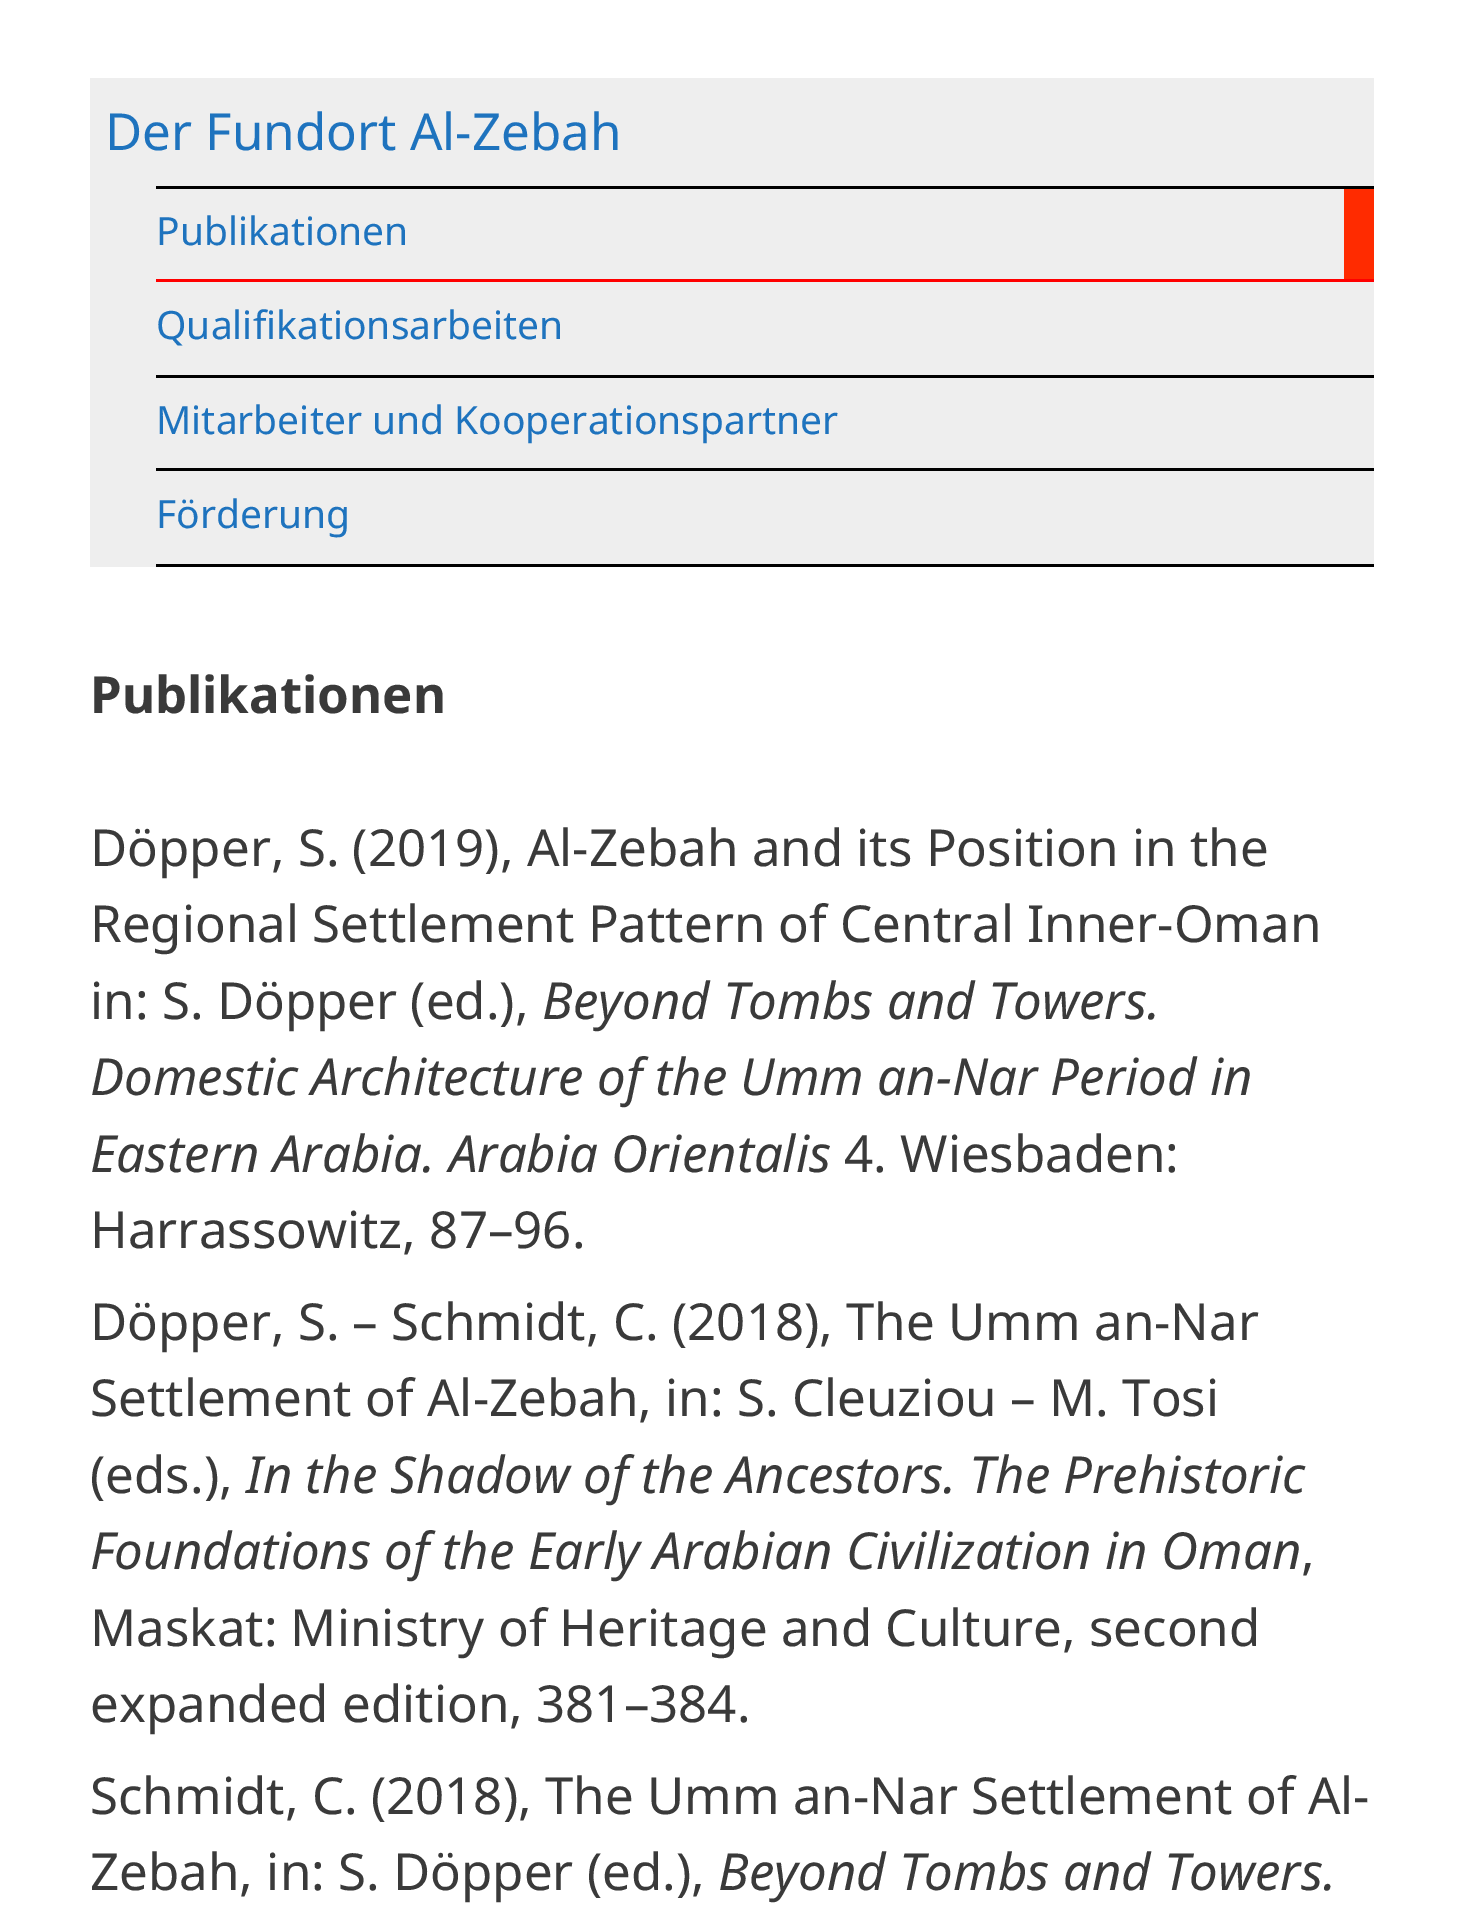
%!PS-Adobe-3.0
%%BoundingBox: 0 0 1463 1916
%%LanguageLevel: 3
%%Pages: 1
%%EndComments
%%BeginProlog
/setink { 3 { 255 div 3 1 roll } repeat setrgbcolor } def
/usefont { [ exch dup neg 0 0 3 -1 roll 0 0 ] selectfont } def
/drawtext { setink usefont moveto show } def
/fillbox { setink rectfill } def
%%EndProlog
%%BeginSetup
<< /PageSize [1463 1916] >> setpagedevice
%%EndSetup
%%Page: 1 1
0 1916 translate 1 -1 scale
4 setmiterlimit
0 0 1463 1916 255 255 255 fillbox
90 78 1284 489 238 238 238 fillbox
(Der Fundort Al-Zebah) 105 150 /NotoSans-Regular 51 30 115 190 drawtext
1344 189 30 90 255 43 0 fillbox
156 186 1218 3 0 0 0 fillbox
156 279 1218 3 255 0 0 fillbox
(Publikationen) 156 245 /NotoSans-Regular 39 30 115 190 drawtext
156 375 1218 3 0 0 0 fillbox
(Qualifikationsarbeiten) 156 339 /NotoSans-Regular 39 30 115 190 drawtext
156 468 1218 3 0 0 0 fillbox
(Mitarbeiter und Kooperationspartner) 156 434 /NotoSans-Regular 39 30 115 190 drawtext
156 564 1218 3 0 0 0 fillbox
(Förderung) 156 528 /NotoSans-Regular 39 30 115 190 drawtext
(Publikationen) 90 713 /NotoSans-Bold 51 58 58 58 drawtext
(Döpper, S. \(2019\), Al-Zebah and its Position in the) 90 866 /NotoSans-Regular 51 58 58 58 drawtext
(Regional Settlement Pattern of Central Inner-Oman) 90 942 /NotoSans-Regular 51 58 58 58 drawtext
(in: S. Döpper \(ed.\),) 90 1019 /NotoSans-Regular 51 58 58 58 drawtext
(Beyond Tombs and Towers.) 542 1019 /NotoSans-Italic 51 58 58 58 drawtext
(Domestic Architecture of the Umm an-Nar Period in) 90 1095 /NotoSans-Italic 51 58 58 58 drawtext
(Eastern Arabia. Arabia Orientalis) 90 1172 /NotoSans-Italic 51 58 58 58 drawtext
(4. Wiesbaden:) 844 1172 /NotoSans-Regular 51 58 58 58 drawtext
(Harrassowitz, 87–96.) 90 1248 /NotoSans-Regular 51 58 58 58 drawtext
(Döpper, S. – Schmidt, C. \(2018\), The Umm an-Nar) 90 1340 /NotoSans-Regular 51 58 58 58 drawtext
(Settlement of Al-Zebah, in: S. Cleuziou – M. Tosi) 90 1416 /NotoSans-Regular 51 58 58 58 drawtext
(\(eds.\),) 90 1493 /NotoSans-Regular 51 58 58 58 drawtext
(In the Shadow of the Ancestors. The Prehistoric) 246 1493 /NotoSans-Italic 51 58 58 58 drawtext
(Foundations of the Early Arabian Civilization in Oman) 90 1569 /NotoSans-Italic 51 58 58 58 drawtext
(,) 1301 1569 /NotoSans-Regular 51 58 58 58 drawtext
(Maskat: Ministry of Heritage and Culture, second) 90 1646 /NotoSans-Regular 51 58 58 58 drawtext
(expanded edition, 381–384.) 90 1722 /NotoSans-Regular 51 58 58 58 drawtext
(Schmidt, C. \(2018\), The Umm an-Nar Settlement of Al-) 90 1814 /NotoSans-Regular 51 58 58 58 drawtext
(Zebah, in: S. Döpper \(ed.\),) 90 1890 /NotoSans-Regular 51 58 58 58 drawtext
(Beyond Tombs and Towers.) 718 1890 /NotoSans-Italic 51 58 58 58 drawtext
showpage
%%EOF
